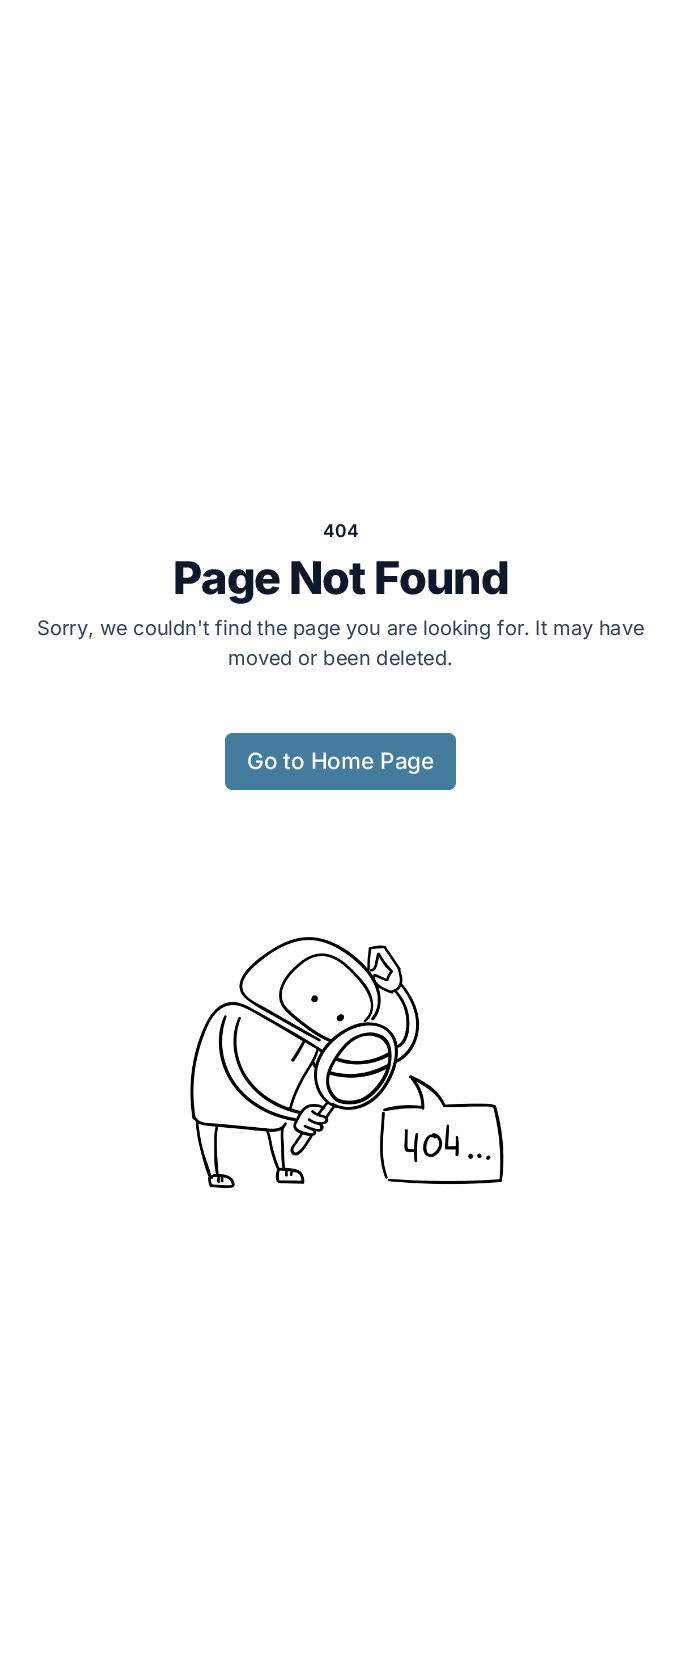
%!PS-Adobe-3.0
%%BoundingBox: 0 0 681 1658
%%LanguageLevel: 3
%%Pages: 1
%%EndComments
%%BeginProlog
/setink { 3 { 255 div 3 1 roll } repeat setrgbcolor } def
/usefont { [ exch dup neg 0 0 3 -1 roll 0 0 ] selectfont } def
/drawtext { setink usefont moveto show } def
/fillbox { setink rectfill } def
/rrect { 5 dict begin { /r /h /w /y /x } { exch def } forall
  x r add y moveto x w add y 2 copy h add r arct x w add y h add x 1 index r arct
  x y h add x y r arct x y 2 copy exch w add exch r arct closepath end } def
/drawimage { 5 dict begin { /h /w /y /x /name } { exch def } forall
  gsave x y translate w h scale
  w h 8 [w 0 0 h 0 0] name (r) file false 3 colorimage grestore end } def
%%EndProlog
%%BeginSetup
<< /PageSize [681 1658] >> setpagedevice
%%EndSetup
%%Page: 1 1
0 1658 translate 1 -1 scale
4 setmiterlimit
0 0 681 1658 255 255 255 fillbox
/Inter-SemiBold 17.5 usefont
15 23 42 setink
323 537 moveto 0.5 0 (404) ashow
/Inter-ExtraBold 45 usefont
173 594 moveto -1.1 0 (Page Not Found) ashow
(Sorry, we couldn't find the page you are looking for. It may have) 37 635 /Inter-Regular 20 51 65 85 drawtext
(moved or been deleted.) 228 665 /Inter-Regular 20 51 65 85 drawtext
69 123 157 setink
225 733 231 57 8 rrect fill
(Go to Home Page) 247 769 /Inter-Medium 22.5 255 255 255 drawtext
(assets/img1.rgb) 190 937 314 251 drawimage
showpage
%%EOF
